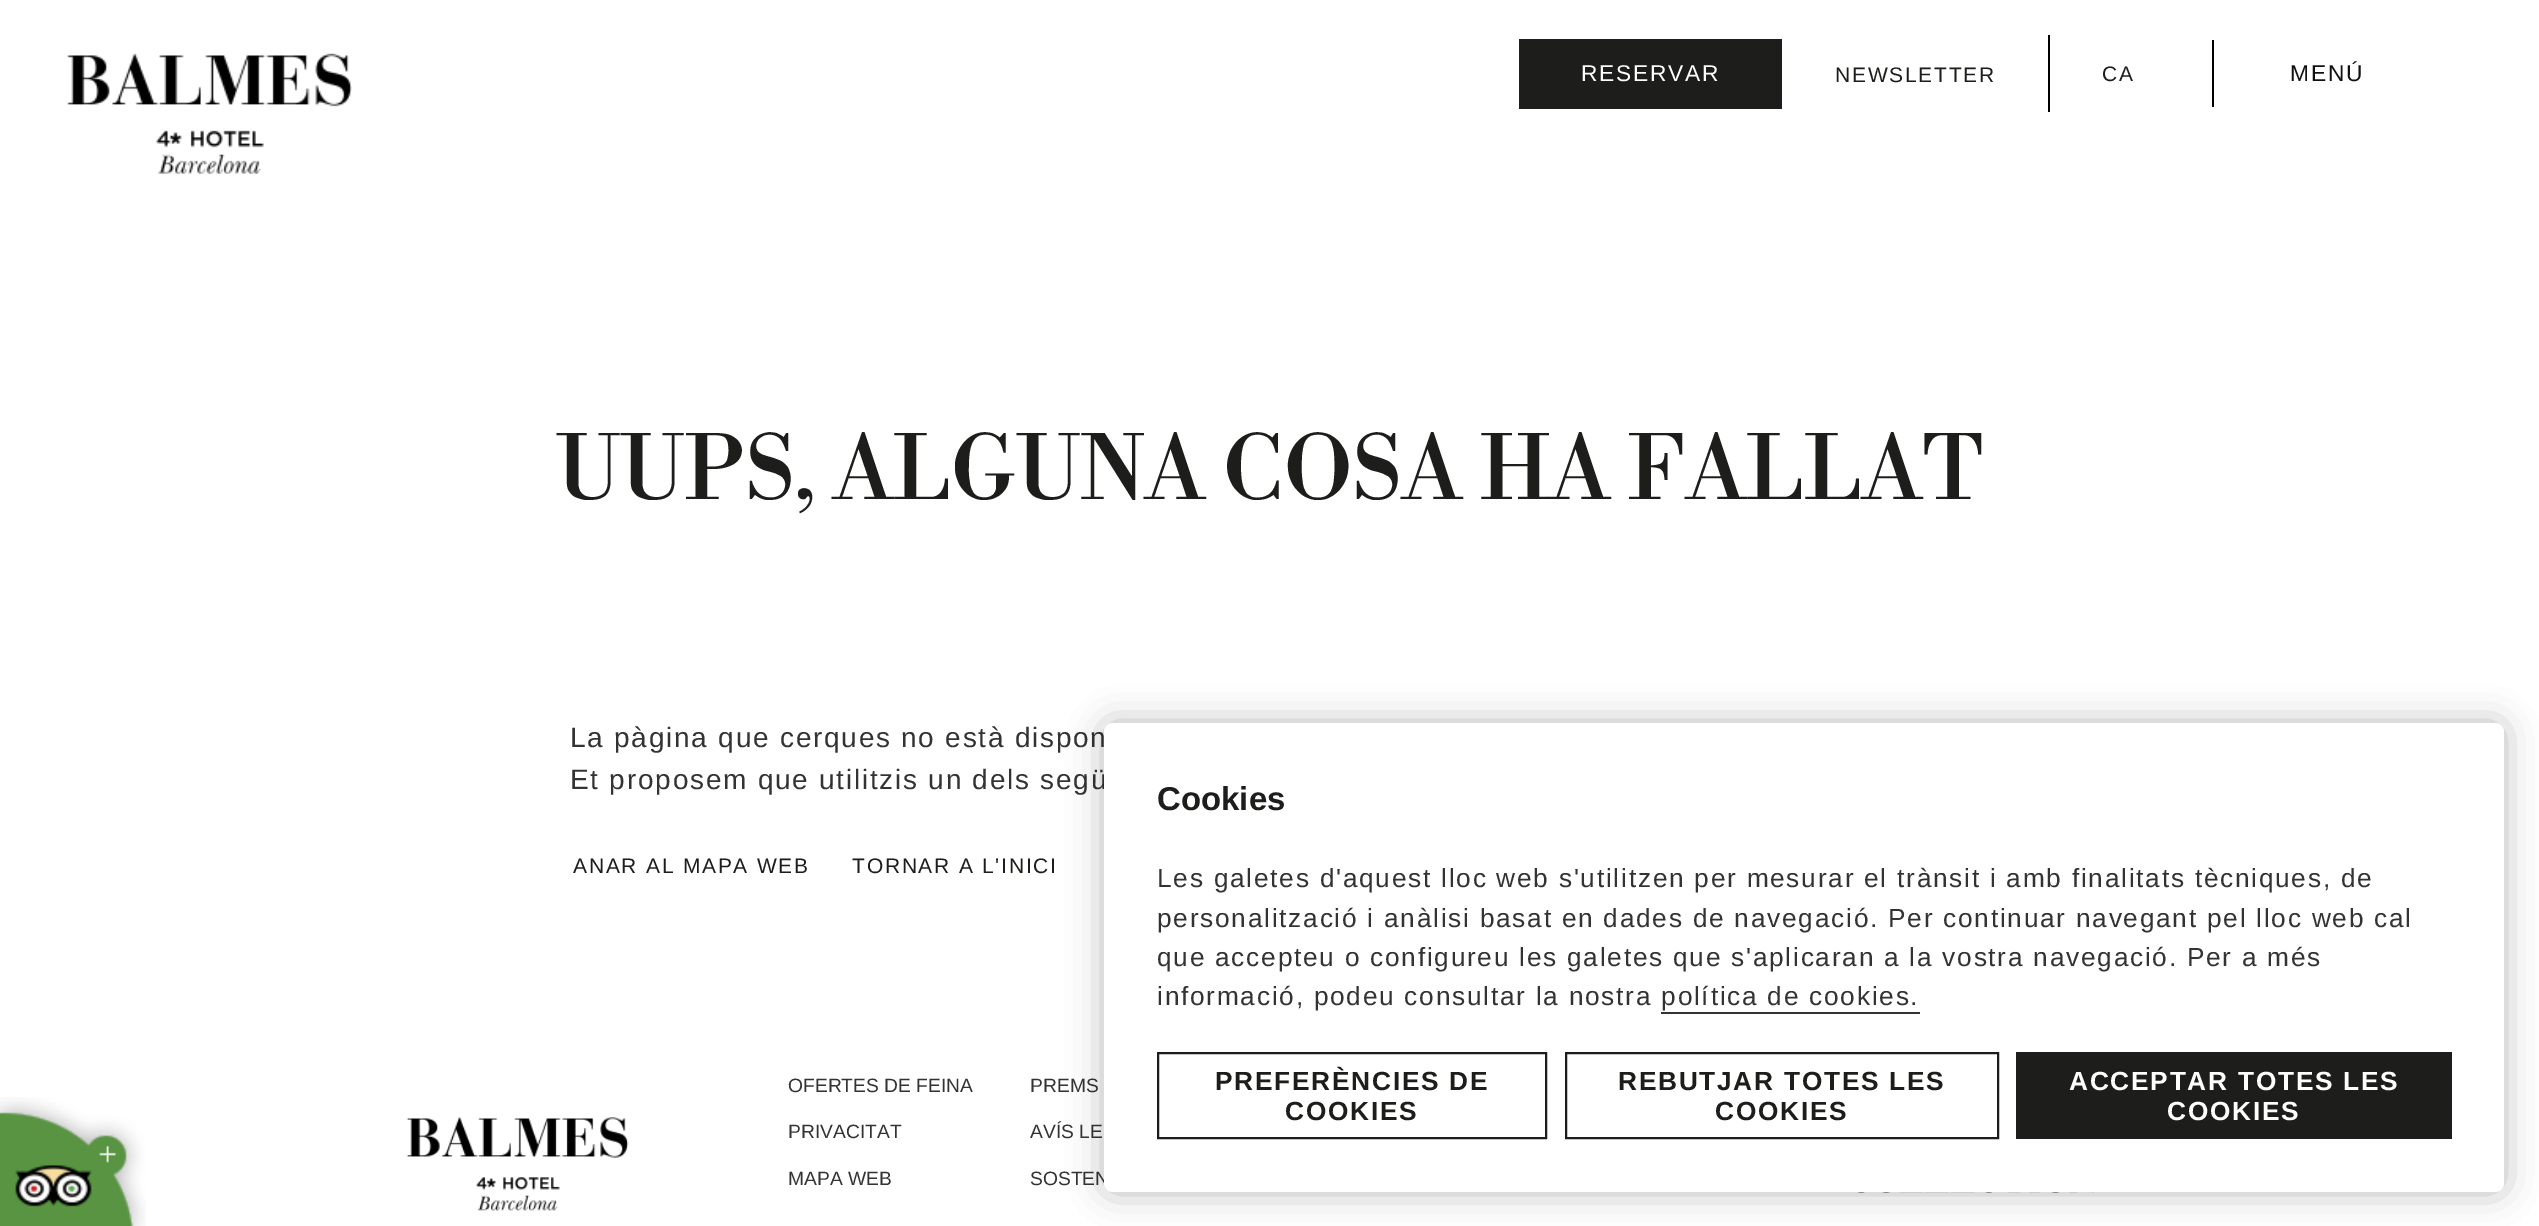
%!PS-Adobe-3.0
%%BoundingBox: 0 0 2539 1226
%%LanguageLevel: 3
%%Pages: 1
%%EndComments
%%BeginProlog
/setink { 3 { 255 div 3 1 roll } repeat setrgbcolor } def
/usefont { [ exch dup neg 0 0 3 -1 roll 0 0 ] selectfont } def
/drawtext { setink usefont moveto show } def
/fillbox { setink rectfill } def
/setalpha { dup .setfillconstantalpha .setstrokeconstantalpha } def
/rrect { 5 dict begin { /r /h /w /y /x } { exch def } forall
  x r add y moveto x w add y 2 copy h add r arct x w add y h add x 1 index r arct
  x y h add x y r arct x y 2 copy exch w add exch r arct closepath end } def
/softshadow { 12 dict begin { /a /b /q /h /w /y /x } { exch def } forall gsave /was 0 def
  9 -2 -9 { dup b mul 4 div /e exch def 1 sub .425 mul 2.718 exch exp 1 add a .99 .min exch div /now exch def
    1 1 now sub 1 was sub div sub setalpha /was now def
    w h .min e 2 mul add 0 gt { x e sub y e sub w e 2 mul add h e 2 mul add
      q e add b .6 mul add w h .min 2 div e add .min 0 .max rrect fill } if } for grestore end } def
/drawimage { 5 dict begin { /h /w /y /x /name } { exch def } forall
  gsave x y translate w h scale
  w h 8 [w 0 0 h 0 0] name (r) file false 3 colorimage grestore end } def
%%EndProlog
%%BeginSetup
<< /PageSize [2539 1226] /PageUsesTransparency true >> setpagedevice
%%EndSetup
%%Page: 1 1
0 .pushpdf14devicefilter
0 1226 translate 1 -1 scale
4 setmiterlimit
0 0 2539 1226 255 255 255 fillbox
(assets/img1.rgb) 66 53 286 121 drawimage
1519 39 263 70 29 29 27 fillbox
/LiberationSans-Regular 22.75 usefont
255 255 255 setink
1581 81 moveto 1.75 0 (RESERVAR) ashow
2048 35 2 77 0 0 0 fillbox
/LiberationSans-Regular 21 usefont
29 29 27 setink
1835 82 moveto 1.75 0 (NEWSLETTER) ashow
2212 40 2 67 0 0 0 fillbox
29 29 27 setink
2102 81 moveto 1.75 0 (CA) ashow
/LiberationSans-Regular 22.75 usefont
17 17 17 setink
2290 81 moveto 1.75 0 (MENÚ) ashow
(UUPS, ALGUNA COSA HA FALLAT) 556 499 /LibreBodoni-Regular 87.5 29 29 27 drawtext
/LiberationSans-Regular 28 usefont
51 51 51 setink
570 747 moveto 1.75 0 (La pàgina que cerques no està dispon) ashow
570 789 moveto 1.75 0 (Et proposem que utilitzis un dels segü) ashow
/LiberationSans-Regular 21 usefont
29 29 27 setink
573 873 moveto 1.75 0 (ANAR AL MAPA WEB) ashow
852 873 moveto 1.75 0 (TORNAR A L'INICI) ashow
(assets/img2.rgb) 406 1117 223 94 drawimage
(OFERTES DE FEINA) 788 1092 /LiberationSans-Regular 19.25 51 51 51 drawtext
(PREMS) 1030 1092 /LiberationSans-Regular 19.25 51 51 51 drawtext
(PRIVACITAT) 788 1138 /LiberationSans-Regular 19.25 51 51 51 drawtext
(AVÍS LE) 1030 1138 /LiberationSans-Regular 19.25 51 51 51 drawtext
(MAPA WEB) 788 1185 /LiberationSans-Regular 19.25 51 51 51 drawtext
(SOSTEN) 1030 1185 /LiberationSans-Regular 19.25 51 51 51 drawtext
(assets/img3.rgb) 1823 1192 297 1 drawimage
17 17 17 setink
1104 723 1400 469 9 17.5 0.3 softshadow
255 255 255 setink
1104 723 1400 469 9 rrect fill
(Cookies) 1157 810 /LiberationSans-Bold 33 29 29 27 drawtext
/LiberationSans-Regular 26.25 usefont
51 51 51 setink
1157 887 moveto 1.75 0 (Les galetes d'aquest lloc web s'utilitzen per mesurar el trànsit i amb finalitats tècniques, de) ashow
1157 927 moveto 1.75 0 (personalització i anàlisi basat en dades de navegació. Per continuar navegant pel lloc web cal) ashow
1157 966 moveto 1.75 0 (que accepteu o configureu les galetes que s'aplicaran a la vostra navegació. Per a més) ashow
1157 1005 moveto 1.75 0 (informació, podeu consultar la nostra política de cookies.) ashow
1661 1012 259 2 51 51 51 fillbox
29 29 27 setink
2 setlinewidth
1158 1053 388 85 rectstroke
/LiberationSans-Bold 26.25 usefont
1215 1090 moveto 1.75 0 (PREFERÈNCIES DE) ashow
1285 1120 moveto 1.75 0 (COOKIES) ashow
1566 1053 432 85 rectstroke
1618 1090 moveto 1.75 0 (REBUTJAR TOTES LES) ashow
1715 1120 moveto 1.75 0 (COOKIES) ashow
2016 1052 436 87 29 29 27 fillbox
255 255 255 setink
2069 1090 moveto 1.75 0 (ACCEPTAR TOTES LES) ashow
2167 1120 moveto 1.75 0 (COOKIES) ashow
(assets/img4.rgb) 0 1097 146 129 drawimage
.poppdf14devicefilter showpage
%%EOF
